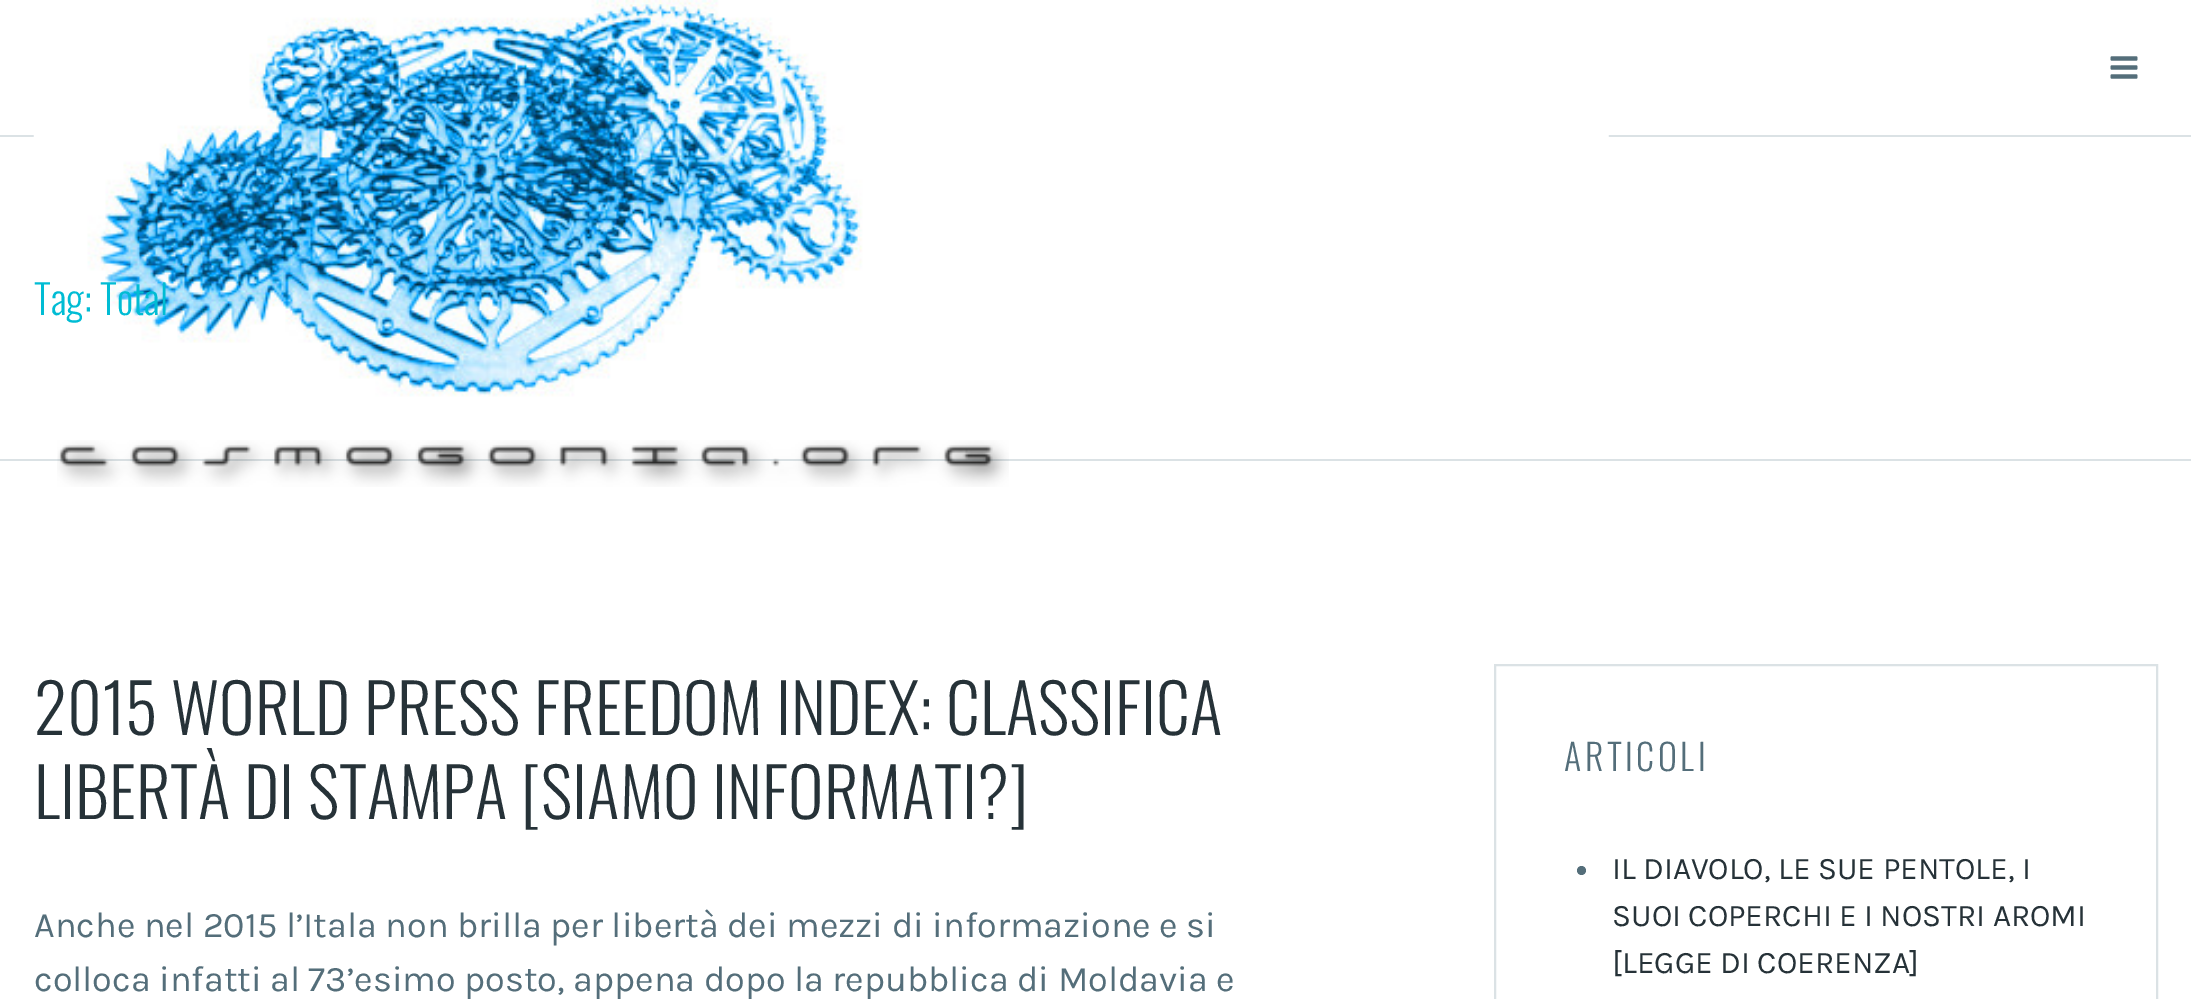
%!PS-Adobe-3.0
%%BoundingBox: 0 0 2191 999
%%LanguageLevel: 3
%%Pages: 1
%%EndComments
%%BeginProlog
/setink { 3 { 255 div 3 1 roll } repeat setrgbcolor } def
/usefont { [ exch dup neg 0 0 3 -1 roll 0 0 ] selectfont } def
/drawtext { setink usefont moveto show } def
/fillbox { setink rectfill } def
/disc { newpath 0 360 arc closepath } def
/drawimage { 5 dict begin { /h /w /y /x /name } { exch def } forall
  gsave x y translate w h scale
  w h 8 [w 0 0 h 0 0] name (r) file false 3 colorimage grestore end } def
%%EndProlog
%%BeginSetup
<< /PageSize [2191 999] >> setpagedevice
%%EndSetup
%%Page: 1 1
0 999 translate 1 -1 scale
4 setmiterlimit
0 0 2191 999 255 255 255 fillbox
0 135 2191 2 219 226 229 fillbox
(assets/img1.rgb) 33 0 1576 397 drawimage
0 459 2191 2 219 226 229 fillbox
(assets/img2.rgb) 57 440 952 47 drawimage
(assets/img3.rgb) 2110 56 28 23 drawimage
(Tag: Total) 34 315 /Oswald-Light 40.5 0 188 212 drawtext
(2015 WORLD PRESS FREEDOM INDEX: CLASSIFICA) 34 735 /Oswald-Light 67.5 38 50 56 drawtext
(LIBERTÀ DI STAMPA [SIAMO INFORMATI?]) 34 819 /Oswald-Light 67.5 38 50 56 drawtext
(Anche nel 2015 l’Itala non brilla per libertà dei mezzi di informazione e si) 34 937 /Karla-Regular 36 84 110 122 drawtext
(colloca infatti al 73’esimo posto, appena dopo la repubblica di Moldavia e) 34 991 /Karla-Regular 36 84 110 122 drawtext
219 226 229 setink
2 setlinewidth
1495 665 662 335 rectstroke
/Oswald-Light 36 usefont
84 110 122 setink
1564 771 moveto 3.5 0 (ARTICOLI) ashow
1581.5 870.5 4.5 disc fill
(IL DIAVOLO, LE SUE PENTOLE, I) 1612 879 /Karla-Regular 31.5 38 50 56 drawtext
(SUOI COPERCHI E I NOSTRI AROMI) 1612 926 /Karla-Regular 31.5 38 50 56 drawtext
([LEGGE DI COERENZA]) 1612 973 /Karla-Regular 31.5 38 50 56 drawtext
showpage
%%EOF
